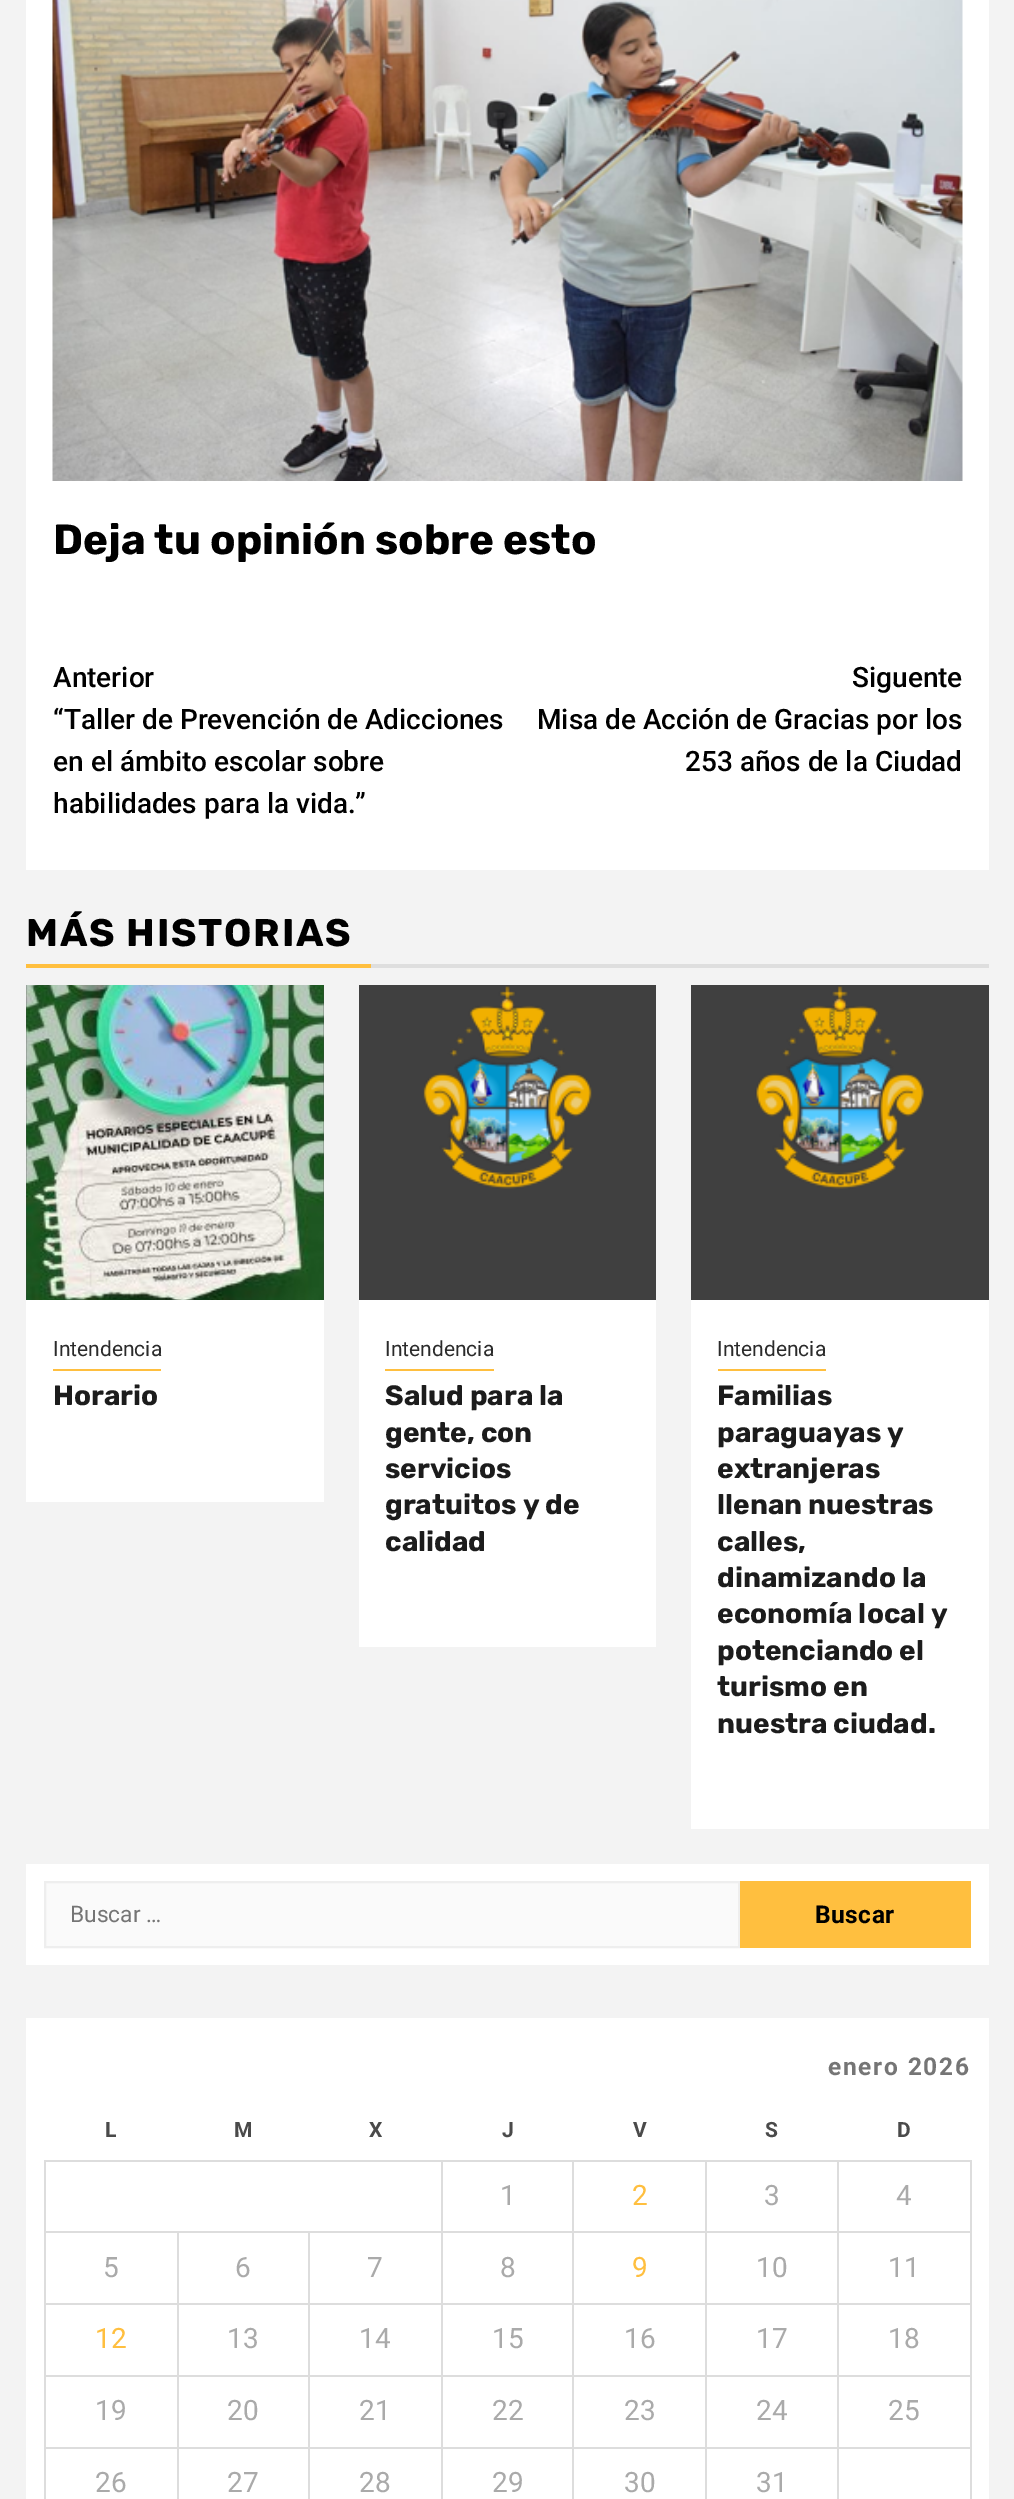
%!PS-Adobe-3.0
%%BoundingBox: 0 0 1014 2499
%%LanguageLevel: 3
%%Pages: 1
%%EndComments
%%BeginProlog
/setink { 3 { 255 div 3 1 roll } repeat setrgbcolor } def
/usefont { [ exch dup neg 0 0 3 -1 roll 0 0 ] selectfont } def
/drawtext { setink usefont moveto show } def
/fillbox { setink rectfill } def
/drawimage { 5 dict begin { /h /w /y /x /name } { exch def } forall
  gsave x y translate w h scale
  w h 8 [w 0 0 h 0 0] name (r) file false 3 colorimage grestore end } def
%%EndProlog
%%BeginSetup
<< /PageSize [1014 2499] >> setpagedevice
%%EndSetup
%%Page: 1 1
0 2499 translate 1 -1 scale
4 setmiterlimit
0 0 1014 2499 243 243 243 fillbox
26 0 963 870 255 255 255 fillbox
(assets/img1.rgb) 52 0 911 481 drawimage
(Deja tu opinión sobre esto) 53 554 /Rubik-Light 42 0 0 0 drawtext
(Anterior) 53 687 /Roboto-Medium 28 0 0 0 drawtext
(“Taller de Prevención de Adicciones) 53 729 /Roboto-Medium 28 0 0 0 drawtext
(en el ámbito escolar sobre) 53 771 /Roboto-Medium 28 0 0 0 drawtext
(habilidades para la vida.”) 53 813 /Roboto-Medium 28 0 0 0 drawtext
(Siguente) 852 687 /Roboto-Medium 28 0 0 0 drawtext
(Misa de Acción de Gracias por los) 537 729 /Roboto-Medium 28 0 0 0 drawtext
(253 años de la Ciudad) 685 771 /Roboto-Medium 28 0 0 0 drawtext
26 964 345 4 255 191 63 fillbox
/Rubik-Light 38.5 usefont
0 0 0 setink
26 946 moveto 1.75 0 (MÁS HISTORIAS) ashow
371 964 618 4 222 222 222 fillbox
26 985 298 517 255 255 255 fillbox
(assets/img2.rgb) 26 985 298 315 drawimage
53 1369 108 2 255 191 63 fillbox
(Intendencia) 53 1356 /Roboto-Regular 21 43 43 43 drawtext
(Horario) 53 1405 /Rubik-Light 28 28 28 28 drawtext
359 1300 297 347 255 255 255 fillbox
359 985 297 315 64 64 64 fillbox
(assets/img3.rgb) 423 986 169 203 drawimage
385 1369 109 2 255 191 63 fillbox
(Intendencia) 385 1356 /Roboto-Regular 21 43 43 43 drawtext
(Salud para la) 385 1405 /Rubik-Light 28 28 28 28 drawtext
(gente, con) 385 1442 /Rubik-Light 28 28 28 28 drawtext
(servicios) 385 1478 /Rubik-Light 28 28 28 28 drawtext
(gratuitos y de) 385 1514 /Rubik-Light 28 28 28 28 drawtext
(calidad) 385 1551 /Rubik-Light 28 28 28 28 drawtext
691 1300 298 529 255 255 255 fillbox
691 985 298 315 64 64 64 fillbox
(assets/img4.rgb) 755 986 169 203 drawimage
718 1369 108 2 255 191 63 fillbox
(Intendencia) 717 1356 /Roboto-Regular 21 43 43 43 drawtext
(Familias) 717 1405 /Rubik-Light 28 28 28 28 drawtext
(paraguayas y) 717 1442 /Rubik-Light 28 28 28 28 drawtext
(extranjeras) 717 1478 /Rubik-Light 28 28 28 28 drawtext
(llenan nuestras) 717 1514 /Rubik-Light 28 28 28 28 drawtext
(calles,) 717 1551 /Rubik-Light 28 28 28 28 drawtext
(dinamizando la) 717 1587 /Rubik-Light 28 28 28 28 drawtext
(economía local y) 717 1623 /Rubik-Light 28 28 28 28 drawtext
(potenciando el) 717 1660 /Rubik-Light 28 28 28 28 drawtext
(turismo en) 717 1696 /Rubik-Light 28 28 28 28 drawtext
(nuestra ciudad.) 717 1733 /Rubik-Light 28 28 28 28 drawtext
26 1864 963 101 255 255 255 fillbox
250 250 250 setink
45 1882 moveto 739 1882 lineto 739 1947 lineto 45 1947 lineto closepath gsave fill grestore
238 238 238 setink
2 setlinewidth
stroke
(Buscar …) 70 1922 /Roboto-Regular 22.75 117 117 117 drawtext
740 1881 231 67 255 191 63 fillbox
/Roboto-Bold 24.5 usefont
0 0 0 setink
815 1923 moveto 0.5 0 (Buscar) ashow
26 2018 963 481 255 255 255 fillbox
117 117 117 setink
828 2075 moveto 1.75 0 (enero 2026) ashow
(L) 105 2137 /Roboto-Bold 21 74 74 74 drawtext
(M) 234 2137 /Roboto-Bold 21 74 74 74 drawtext
(X) 369 2137 /Roboto-Bold 21 74 74 74 drawtext
(J) 502 2137 /Roboto-Bold 21 74 74 74 drawtext
(V) 633 2137 /Roboto-Bold 21 74 74 74 drawtext
(S) 765 2137 /Roboto-Bold 21 74 74 74 drawtext
(D) 897 2137 /Roboto-Bold 21 74 74 74 drawtext
837 2160 134 2 221 221 221 fillbox
837 2231 134 2 221 221 221 fillbox
837 2303 134 2 221 221 221 fillbox
837 2375 134 2 221 221 221 fillbox
837 2447 134 2 221 221 221 fillbox
837 2447 2 52 221 221 221 fillbox
705 2447 133 2 221 221 221 fillbox
837 2375 2 73 221 221 221 fillbox
705 2375 133 2 221 221 221 fillbox
837 2303 2 74 221 221 221 fillbox
705 2303 133 2 221 221 221 fillbox
837 2231 2 74 221 221 221 fillbox
705 2231 133 2 221 221 221 fillbox
837 2160 2 73 221 221 221 fillbox
705 2160 133 2 221 221 221 fillbox
705 2447 2 52 221 221 221 fillbox
572 2447 135 2 221 221 221 fillbox
705 2375 2 73 221 221 221 fillbox
572 2375 135 2 221 221 221 fillbox
705 2303 2 74 221 221 221 fillbox
572 2303 135 2 221 221 221 fillbox
705 2231 2 74 221 221 221 fillbox
572 2231 135 2 221 221 221 fillbox
705 2160 2 73 221 221 221 fillbox
572 2160 135 2 221 221 221 fillbox
572 2447 2 52 221 221 221 fillbox
441 2447 133 2 221 221 221 fillbox
572 2375 2 73 221 221 221 fillbox
441 2375 133 2 221 221 221 fillbox
572 2303 2 74 221 221 221 fillbox
441 2303 133 2 221 221 221 fillbox
572 2231 2 74 221 221 221 fillbox
441 2231 133 2 221 221 221 fillbox
572 2160 2 73 221 221 221 fillbox
441 2160 133 2 221 221 221 fillbox
441 2447 2 52 221 221 221 fillbox
308 2447 135 2 221 221 221 fillbox
441 2375 2 73 221 221 221 fillbox
308 2375 135 2 221 221 221 fillbox
441 2303 2 74 221 221 221 fillbox
308 2303 135 2 221 221 221 fillbox
441 2231 2 74 221 221 221 fillbox
308 2231 135 2 221 221 221 fillbox
441 2160 2 73 221 221 221 fillbox
44 2160 399 2 221 221 221 fillbox
308 2447 2 52 221 221 221 fillbox
177 2447 133 2 221 221 221 fillbox
308 2375 2 73 221 221 221 fillbox
177 2375 133 2 221 221 221 fillbox
308 2303 2 74 221 221 221 fillbox
177 2303 133 2 221 221 221 fillbox
308 2231 2 74 221 221 221 fillbox
177 2231 133 2 221 221 221 fillbox
177 2447 2 52 221 221 221 fillbox
44 2447 135 2 221 221 221 fillbox
177 2375 2 73 221 221 221 fillbox
44 2375 135 2 221 221 221 fillbox
177 2303 2 74 221 221 221 fillbox
44 2303 135 2 221 221 221 fillbox
177 2231 2 74 221 221 221 fillbox
44 2231 135 2 221 221 221 fillbox
44 2447 2 52 221 221 221 fillbox
44 2375 2 73 221 221 221 fillbox
44 2303 2 74 221 221 221 fillbox
44 2231 2 74 221 221 221 fillbox
44 2160 2 73 221 221 221 fillbox
(1) 500 2205 /Roboto-Regular 28 170 170 170 drawtext
(2) 632 2205 /Roboto-Regular 28 255 191 63 drawtext
(3) 764 2205 /Roboto-Regular 28 170 170 170 drawtext
970 2447 2 52 221 221 221 fillbox
970 2375 2 73 221 221 221 fillbox
970 2303 2 74 221 221 221 fillbox
970 2231 2 74 221 221 221 fillbox
970 2160 2 73 221 221 221 fillbox
(4) 896 2205 /Roboto-Regular 28 170 170 170 drawtext
(5) 103 2277 /Roboto-Regular 28 170 170 170 drawtext
(6) 235 2277 /Roboto-Regular 28 170 170 170 drawtext
(7) 367 2277 /Roboto-Regular 28 170 170 170 drawtext
(8) 500 2277 /Roboto-Regular 28 170 170 170 drawtext
(9) 632 2277 /Roboto-Regular 28 255 191 63 drawtext
(10) 756 2277 /Roboto-Regular 28 170 170 170 drawtext
(11) 888 2277 /Roboto-Regular 28 170 170 170 drawtext
(12) 95 2348 /Roboto-Regular 28 255 191 63 drawtext
(13) 227 2348 /Roboto-Regular 28 170 170 170 drawtext
(14) 359 2348 /Roboto-Regular 28 170 170 170 drawtext
(15) 492 2348 /Roboto-Regular 28 170 170 170 drawtext
(16) 624 2348 /Roboto-Regular 28 170 170 170 drawtext
(17) 756 2348 /Roboto-Regular 28 170 170 170 drawtext
(18) 888 2348 /Roboto-Regular 28 170 170 170 drawtext
(19) 95 2420 /Roboto-Regular 28 170 170 170 drawtext
(20) 227 2420 /Roboto-Regular 28 170 170 170 drawtext
(21) 359 2420 /Roboto-Regular 28 170 170 170 drawtext
(22) 492 2420 /Roboto-Regular 28 170 170 170 drawtext
(23) 624 2420 /Roboto-Regular 28 170 170 170 drawtext
(24) 756 2420 /Roboto-Regular 28 170 170 170 drawtext
(25) 888 2420 /Roboto-Regular 28 170 170 170 drawtext
(26) 95 2492 /Roboto-Regular 28 170 170 170 drawtext
(27) 227 2492 /Roboto-Regular 28 170 170 170 drawtext
(28) 359 2492 /Roboto-Regular 28 170 170 170 drawtext
(29) 492 2492 /Roboto-Regular 28 170 170 170 drawtext
(30) 624 2492 /Roboto-Regular 28 170 170 170 drawtext
(31) 756 2492 /Roboto-Regular 28 170 170 170 drawtext
showpage
%%EOF
